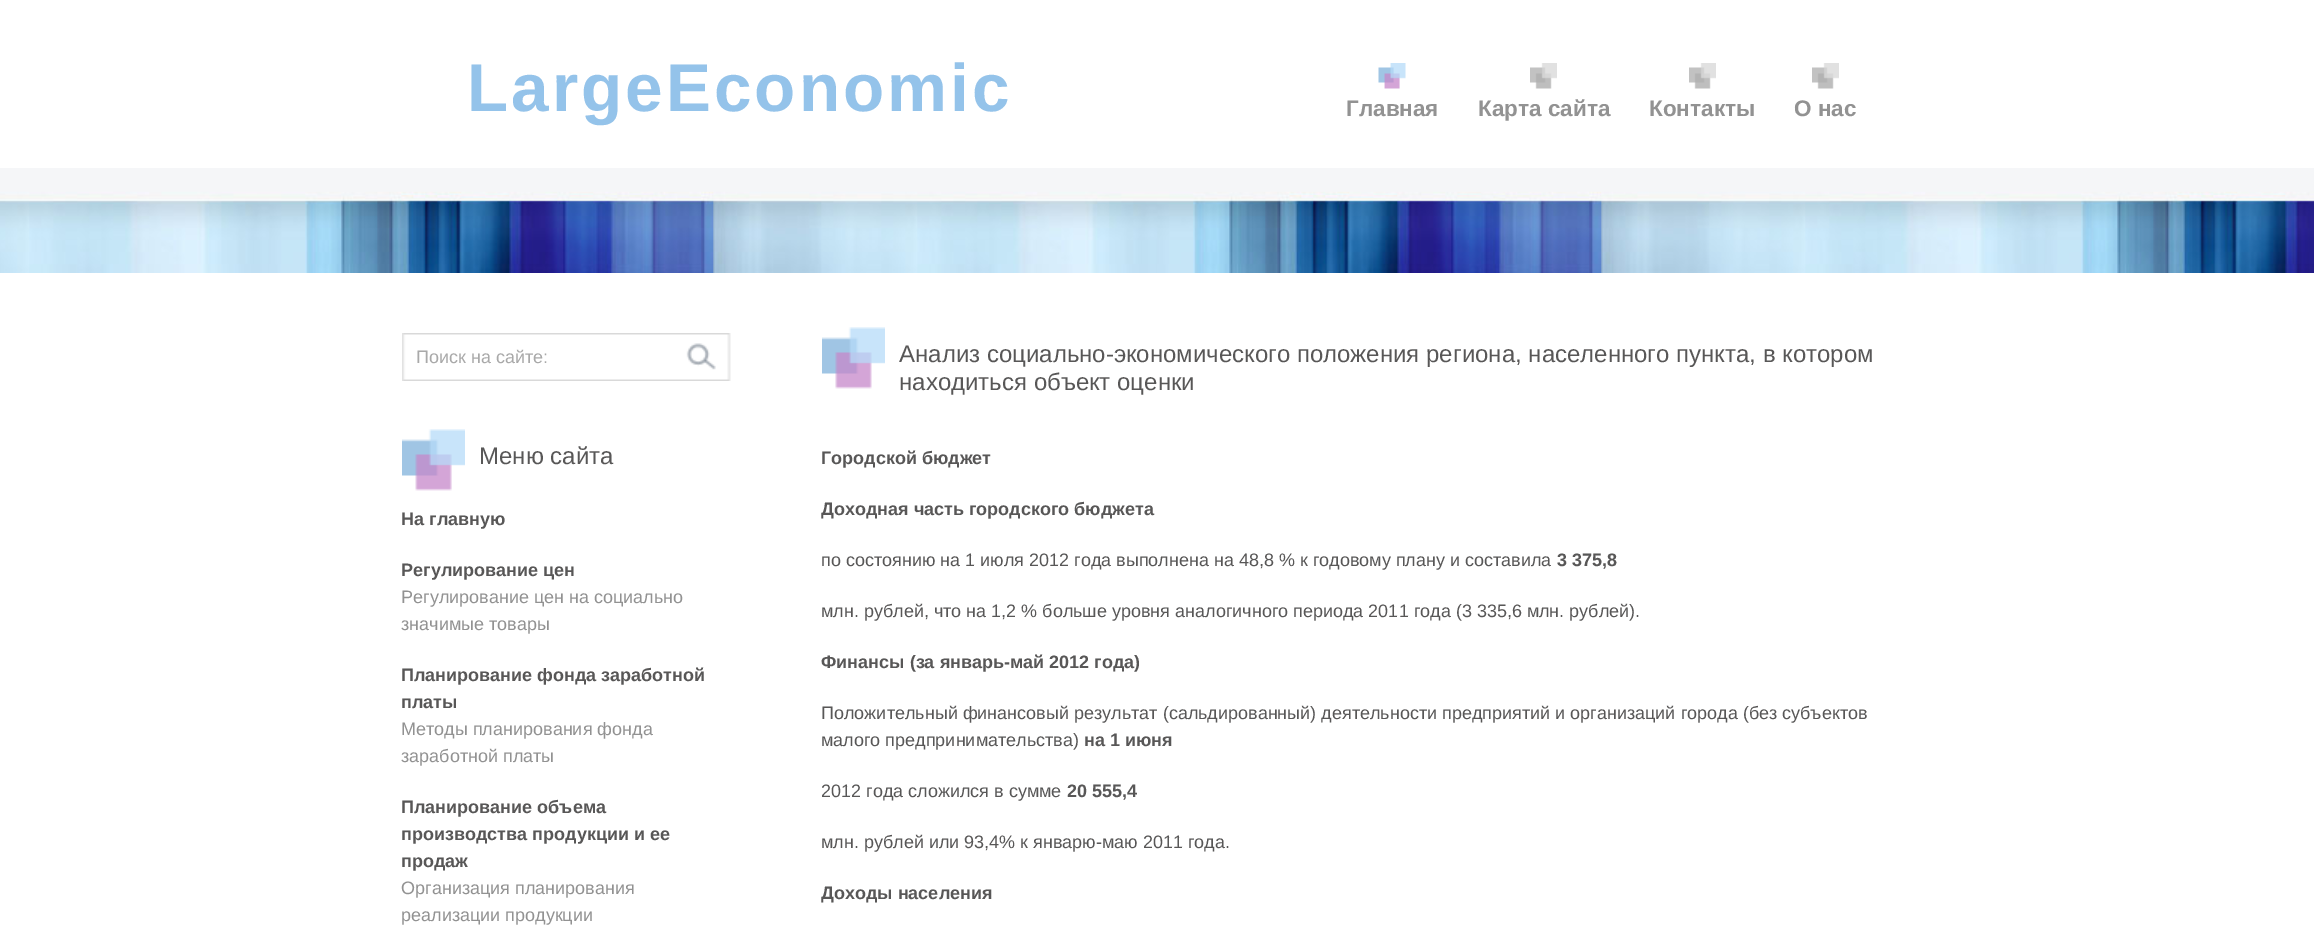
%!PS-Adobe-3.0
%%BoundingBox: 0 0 2314 944
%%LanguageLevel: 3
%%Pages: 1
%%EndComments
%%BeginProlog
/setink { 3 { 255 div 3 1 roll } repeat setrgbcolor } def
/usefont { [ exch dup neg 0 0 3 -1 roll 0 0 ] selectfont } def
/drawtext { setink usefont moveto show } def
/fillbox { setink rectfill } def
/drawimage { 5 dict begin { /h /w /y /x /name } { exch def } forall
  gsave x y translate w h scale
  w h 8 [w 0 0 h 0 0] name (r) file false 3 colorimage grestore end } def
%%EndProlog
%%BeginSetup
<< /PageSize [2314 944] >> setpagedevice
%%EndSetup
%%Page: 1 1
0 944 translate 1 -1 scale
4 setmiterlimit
0 0 2314 944 255 255 255 fillbox
(assets/img1.rgb) 0 168 2314 105 drawimage
/LiberationSans-Bold 67.5 usefont
148 195 234 setink
467 111 moveto 3 0 (LargeEconomic) ashow
(assets/img2.rgb) 1378 63 28 26 drawimage
(Главная) 1346 116 /LiberationSans-Bold 22.5 146 146 146 drawtext
(assets/img3.rgb) 1530 63 27 26 drawimage
(Карта сайта) 1478 116 /LiberationSans-Bold 22.5 146 146 146 drawtext
(assets/img3.rgb) 1689 63 27 26 drawimage
(Контакты) 1649 116 /LiberationSans-Bold 22.5 146 146 146 drawtext
(assets/img3.rgb) 1812 63 27 26 drawimage
(О нас) 1794 116 /LiberationSans-Bold 22.5 146 146 146 drawtext
(assets/img4.rgb) 402 333 282 48 drawimage
(Поиск на сайте:) 416 363 /LiberationSans-Regular 18 169 169 169 drawtext
(assets/img5.rgb) 684 333 47 48 drawimage
(assets/img6.rgb) 402 429 63 62 drawimage
(Меню сайта) 479 464 /LiberationSans-Regular 24 88 87 87 drawtext
(На главную) 401 525 /LiberationSans-Bold 18 88 87 87 drawtext
(Регулирование цен) 401 576 /LiberationSans-Bold 18 88 87 87 drawtext
(Регулирование цен на социально) 401 603 /LiberationSans-Regular 18 146 146 146 drawtext
(значимые товары) 401 630 /LiberationSans-Regular 18 146 146 146 drawtext
(Планирование фонда заработной) 401 681 /LiberationSans-Bold 18 88 87 87 drawtext
(платы) 401 708 /LiberationSans-Bold 18 88 87 87 drawtext
(Методы планирования фонда) 401 735 /LiberationSans-Regular 18 146 146 146 drawtext
(заработной платы) 401 762 /LiberationSans-Regular 18 146 146 146 drawtext
(Планирование объема) 401 813 /LiberationSans-Bold 18 88 87 87 drawtext
(производства продукции и ее) 401 840 /LiberationSans-Bold 18 88 87 87 drawtext
(продаж) 401 867 /LiberationSans-Bold 18 88 87 87 drawtext
(Организация планирования) 401 894 /LiberationSans-Regular 18 146 146 146 drawtext
(реализации продукции) 401 921 /LiberationSans-Regular 18 146 146 146 drawtext
(assets/img7.rgb) 822 327 63 62 drawimage
(Анализ социально-экономического положения региона, населенного пункта, в котором) 899 362 /LiberationSans-Regular 24 88 87 87 drawtext
(находиться объект оценки) 899 390 /LiberationSans-Regular 24 88 87 87 drawtext
(Городской бюджет) 821 464 /LiberationSans-Bold 18 88 87 87 drawtext
(Доходная часть городского бюджета) 821 515 /LiberationSans-Bold 18 88 87 87 drawtext
(по состоянию на 1 июля 2012 года выполнена на 48,8 % к годовому плану и составила) 821 566 /LiberationSans-Regular 18 88 87 87 drawtext
(3 375,8) 1557 566 /LiberationSans-Bold 18 88 87 87 drawtext
(млн. рублей, что на 1,2 % больше уровня аналогичного периода 2011 года \(3 335,6 млн. рублей\).) 821 617 /LiberationSans-Regular 18 88 87 87 drawtext
(Финансы \(за январь-май 2012 года\)) 821 668 /LiberationSans-Bold 18 88 87 87 drawtext
(Положительный финансовый результат \(сальдированный\) деятельности предприятий и организаций города \(без субъектов) 821 719 /LiberationSans-Regular 18 88 87 87 drawtext
(малого предпринимательства\)) 821 746 /LiberationSans-Regular 18 88 87 87 drawtext
(на 1 июня) 1084 746 /LiberationSans-Bold 18 88 87 87 drawtext
(2012 года сложился в сумме) 821 797 /LiberationSans-Regular 18 88 87 87 drawtext
(20 555,4) 1067 797 /LiberationSans-Bold 18 88 87 87 drawtext
(млн. рублей или 93,4% к январю-маю 2011 года.) 821 848 /LiberationSans-Regular 18 88 87 87 drawtext
(Доходы населения) 821 899 /LiberationSans-Bold 18 88 87 87 drawtext
showpage
%%EOF
